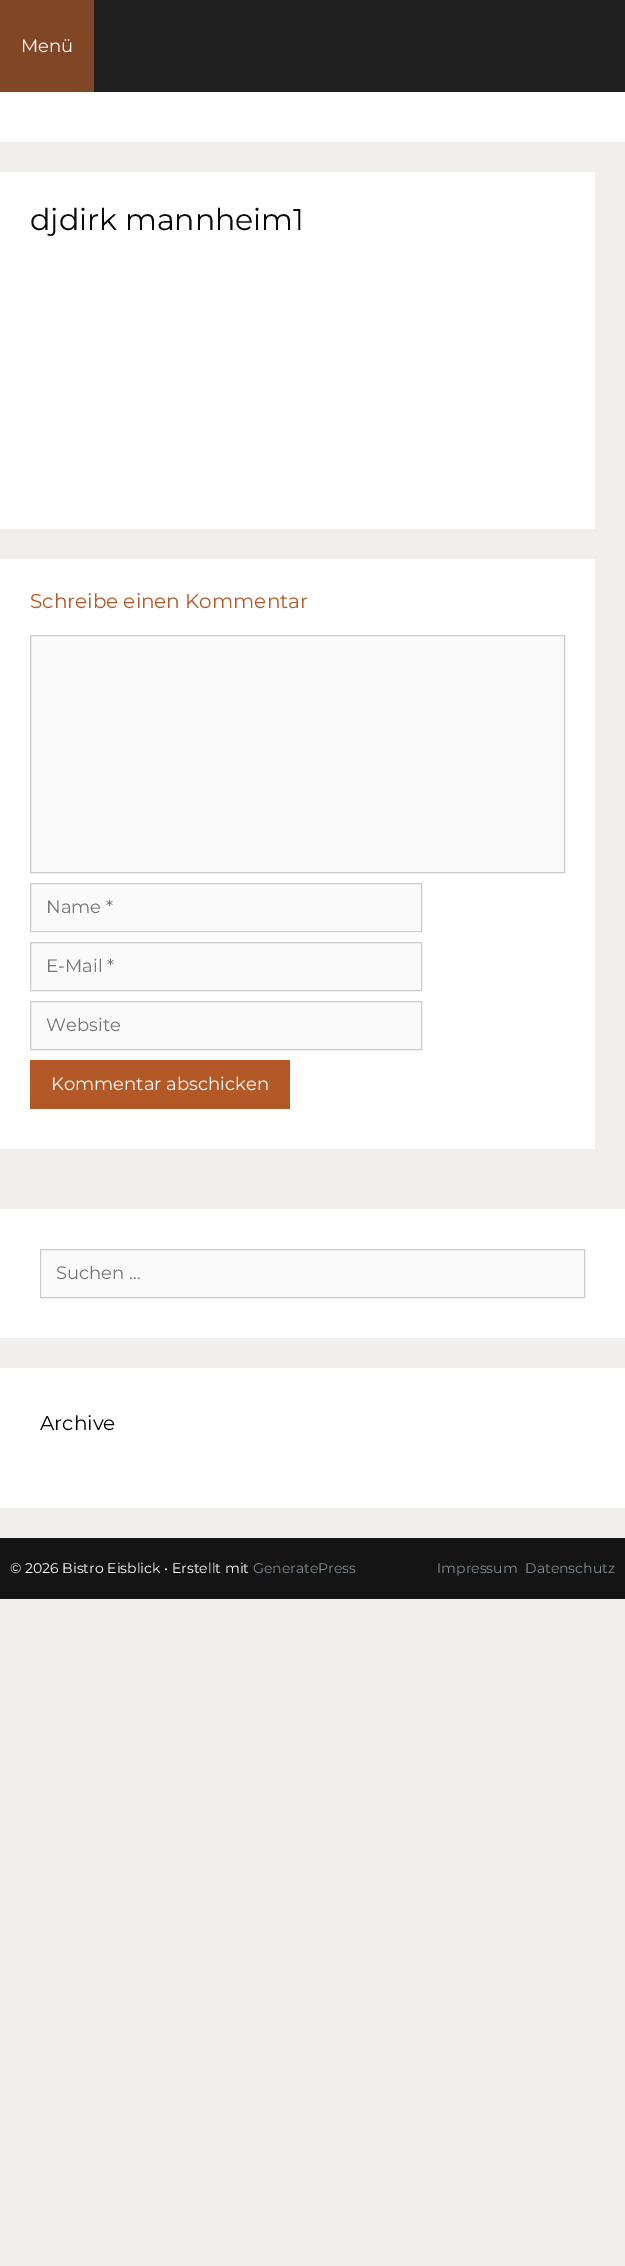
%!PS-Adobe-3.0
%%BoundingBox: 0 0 625 2266
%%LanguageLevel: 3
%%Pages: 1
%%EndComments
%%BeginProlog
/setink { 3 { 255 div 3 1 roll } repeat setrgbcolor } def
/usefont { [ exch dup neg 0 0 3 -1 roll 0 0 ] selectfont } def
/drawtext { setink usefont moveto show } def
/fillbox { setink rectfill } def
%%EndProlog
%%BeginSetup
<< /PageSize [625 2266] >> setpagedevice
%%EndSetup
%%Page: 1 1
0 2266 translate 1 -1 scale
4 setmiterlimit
0 0 625 2266 241 238 238 fillbox
94 0 531 92 32 32 32 fillbox
0 0 94 92 129 70 37 fillbox
(Menü) 21 52 /Montserrat-Regular 18 255 255 255 drawtext
0 92 625 50 255 255 255 fillbox
0 172 595 357 255 255 255 fillbox
(djdirk mannheim1) 30 230 /Montserrat-Regular 30 9 9 9 drawtext
0 559 595 590 255 255 255 fillbox
(Schreibe einen Kommentar) 30 608 /Montserrat-Regular 20 179 89 40 drawtext
250 250 250 setink
30.5 635.5 moveto 564.5 635.5 lineto 564.5 872.5 lineto 30.5 872.5 lineto closepath gsave fill grestore
204 204 204 setink
stroke
250 250 250 setink
30.5 883.5 moveto 421.5 883.5 lineto 421.5 931.5 lineto 30.5 931.5 lineto closepath gsave fill grestore
204 204 204 setink
stroke
(Name *) 46 913 /Montserrat-Regular 18 117 117 117 drawtext
250 250 250 setink
30.5 942.5 moveto 421.5 942.5 lineto 421.5 990.5 lineto 30.5 990.5 lineto closepath gsave fill grestore
204 204 204 setink
stroke
(E-Mail *) 46 972 /Montserrat-Regular 18 117 117 117 drawtext
250 250 250 setink
30.5 1001.5 moveto 421.5 1001.5 lineto 421.5 1049.5 lineto 30.5 1049.5 lineto closepath gsave fill grestore
204 204 204 setink
stroke
(Website) 46 1031 /Montserrat-Regular 18 117 117 117 drawtext
30 1060 260 49 179 89 40 fillbox
(Kommentar abschicken) 51 1090 /Montserrat-Regular 18 255 255 255 drawtext
0 1209 625 129 255 255 255 fillbox
250 250 250 setink
40.5 1249.5 moveto 584.5 1249.5 lineto 584.5 1297.5 lineto 40.5 1297.5 lineto closepath gsave fill grestore
204 204 204 setink
stroke
(Suchen …) 56 1279 /Montserrat-Regular 18 117 117 117 drawtext
0 1368 625 140 255 255 255 fillbox
(Archive) 40 1430 /Montserrat-Regular 20 9 9 9 drawtext
0 1538 625 61 21 20 20 fillbox
(© 2026 Bistro Eisblick • Erstellt mit) 10 1573 /Montserrat-Regular 14 255 255 255 drawtext
(GeneratePress) 253 1573 /Montserrat-Regular 14 125 140 146 drawtext
(Impressum) 437 1573 /Montserrat-Regular 14 125 140 146 drawtext
(Datenschutz) 525 1573 /Montserrat-Regular 14 125 140 146 drawtext
showpage
%%EOF
